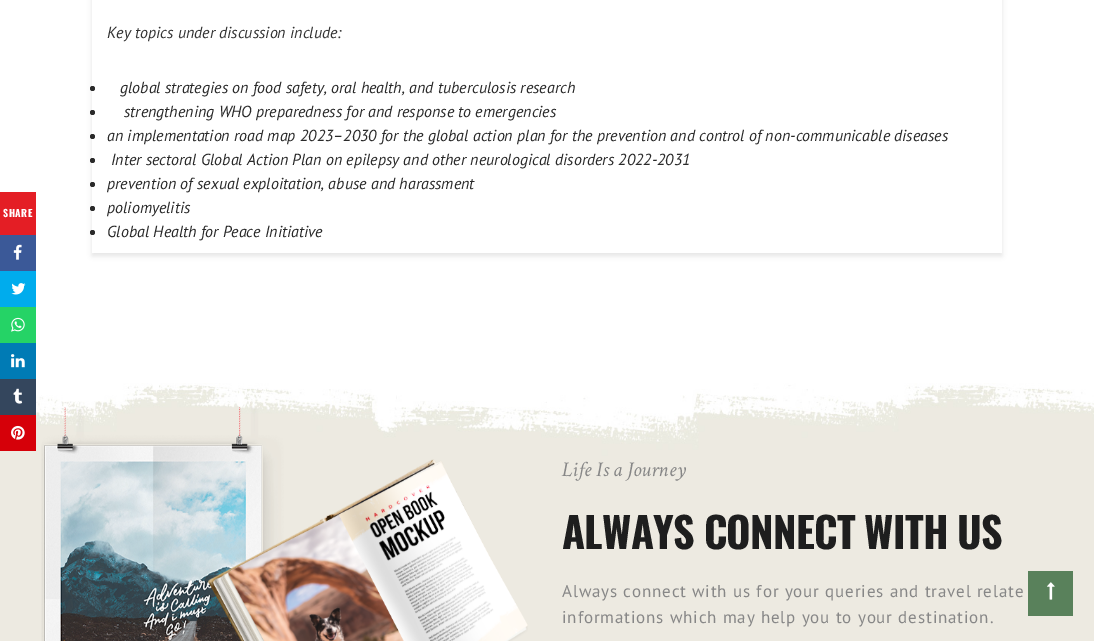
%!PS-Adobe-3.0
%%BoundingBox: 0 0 1094 641
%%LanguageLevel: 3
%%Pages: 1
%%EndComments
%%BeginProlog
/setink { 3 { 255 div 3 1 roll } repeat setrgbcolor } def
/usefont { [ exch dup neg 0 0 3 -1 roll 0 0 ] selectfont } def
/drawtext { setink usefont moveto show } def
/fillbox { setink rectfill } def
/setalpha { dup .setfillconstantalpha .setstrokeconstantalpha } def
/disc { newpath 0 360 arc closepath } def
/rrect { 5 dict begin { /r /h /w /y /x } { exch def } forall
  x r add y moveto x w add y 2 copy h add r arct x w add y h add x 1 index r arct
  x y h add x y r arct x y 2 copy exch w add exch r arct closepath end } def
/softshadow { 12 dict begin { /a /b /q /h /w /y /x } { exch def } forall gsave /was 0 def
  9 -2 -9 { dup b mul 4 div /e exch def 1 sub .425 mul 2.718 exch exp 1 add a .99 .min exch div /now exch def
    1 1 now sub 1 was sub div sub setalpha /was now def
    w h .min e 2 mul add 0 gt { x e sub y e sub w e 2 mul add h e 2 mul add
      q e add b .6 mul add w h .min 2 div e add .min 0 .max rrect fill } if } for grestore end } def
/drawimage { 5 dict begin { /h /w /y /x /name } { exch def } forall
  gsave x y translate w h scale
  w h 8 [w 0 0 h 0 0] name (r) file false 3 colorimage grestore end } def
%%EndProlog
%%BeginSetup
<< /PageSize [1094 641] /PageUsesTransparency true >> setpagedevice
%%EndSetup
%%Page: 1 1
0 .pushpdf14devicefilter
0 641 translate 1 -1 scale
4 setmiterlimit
0 0 1094 641 255 255 255 fillbox
0 192 36 43 228 30 37 fillbox
/Oswald-Bold 10 usefont
255 255 255 setink
3 217 moveto 0.5 0 (SHARE) ashow
0 235 36 36 59 89 152 fillbox
(assets/img1.rgb) 13 244 9 16 drawimage
0 271 36 36 0 172 237 fillbox
(assets/img2.rgb) 11 283 15 12 drawimage
0 307 36 36 37 211 102 fillbox
(assets/img3.rgb) 11 317 14 15 drawimage
0 343 36 36 0 123 181 fillbox
(assets/img4.rgb) 11 354 14 14 drawimage
(assets/img7.rgb) 0 383 1094 258 drawimage
0 379 36 36 52 70 93 fillbox
(assets/img5.rgb) 13 388 10 16 drawimage
0 415 36 36 214 0 9 fillbox
(assets/img6.rgb) 11 425 14 15 drawimage
gsave
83 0 moveto 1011 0 lineto 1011 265 lineto 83 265 lineto closepath 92 -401 moveto 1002 -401 lineto 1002 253 lineto 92 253 lineto closepath eoclip newpath
0 1 1 setink
92 -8 910 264 0 2.5 0.1 softshadow
grestore
(Key topics under discussion include:) 107 38 /PTSans-Italic 16 51 51 51 drawtext
42 42 42 setink
92.5 88.5 2.5 disc fill
(global strategies on food safety, oral health, and tuberculosis research) 120 93 /PTSans-Italic 16 42 42 42 drawtext
92.5 112.5 2.5 disc fill
(strengthening WHO preparedness for and response to emergencies) 124 117 /PTSans-Italic 16 42 42 42 drawtext
92.5 136.5 2.5 disc fill
(an implementation road map 2023–2030 for the global action plan for the prevention and control of non-communicable diseases) 107 141 /PTSans-Italic 16 42 42 42 drawtext
92.5 160.5 2.5 disc fill
(Inter sectoral Global Action Plan on epilepsy and other neurological disorders 2022-2031) 111 165 /PTSans-Italic 16 42 42 42 drawtext
92.5 184.5 2.5 disc fill
(prevention of sexual exploitation, abuse and harassment) 107 189 /PTSans-Italic 16 42 42 42 drawtext
92.5 208.5 2.5 disc fill
(poliomyelitis) 107 213 /PTSans-Italic 16 42 42 42 drawtext
92.5 232.5 2.5 disc fill
(Global Health for Peace Initiative) 107 237 /PTSans-Italic 16 42 42 42 drawtext
(assets/img8.rgb) 41 407 487 234 drawimage
(Life Is a Journey) 562 476 /CrimsonText-Italic 21 135 135 135 drawtext
/Oswald-Bold 42 usefont
30 30 30 setink
562 549 moveto -0.8 0 (ALWAYS CONNECT WITH US) ashow
/PTSans-Regular 17 usefont
135 135 135 setink
562 597 moveto 0.85 0 (Always connect with us for your queries and travel relate) ashow
562 623 moveto 0.85 0 (informations which may help you to your destination.) ashow
1028 571 45 45 89 129 91 fillbox
(assets/img9.rgb) 1047 582 8 18 drawimage
.poppdf14devicefilter showpage
%%EOF
